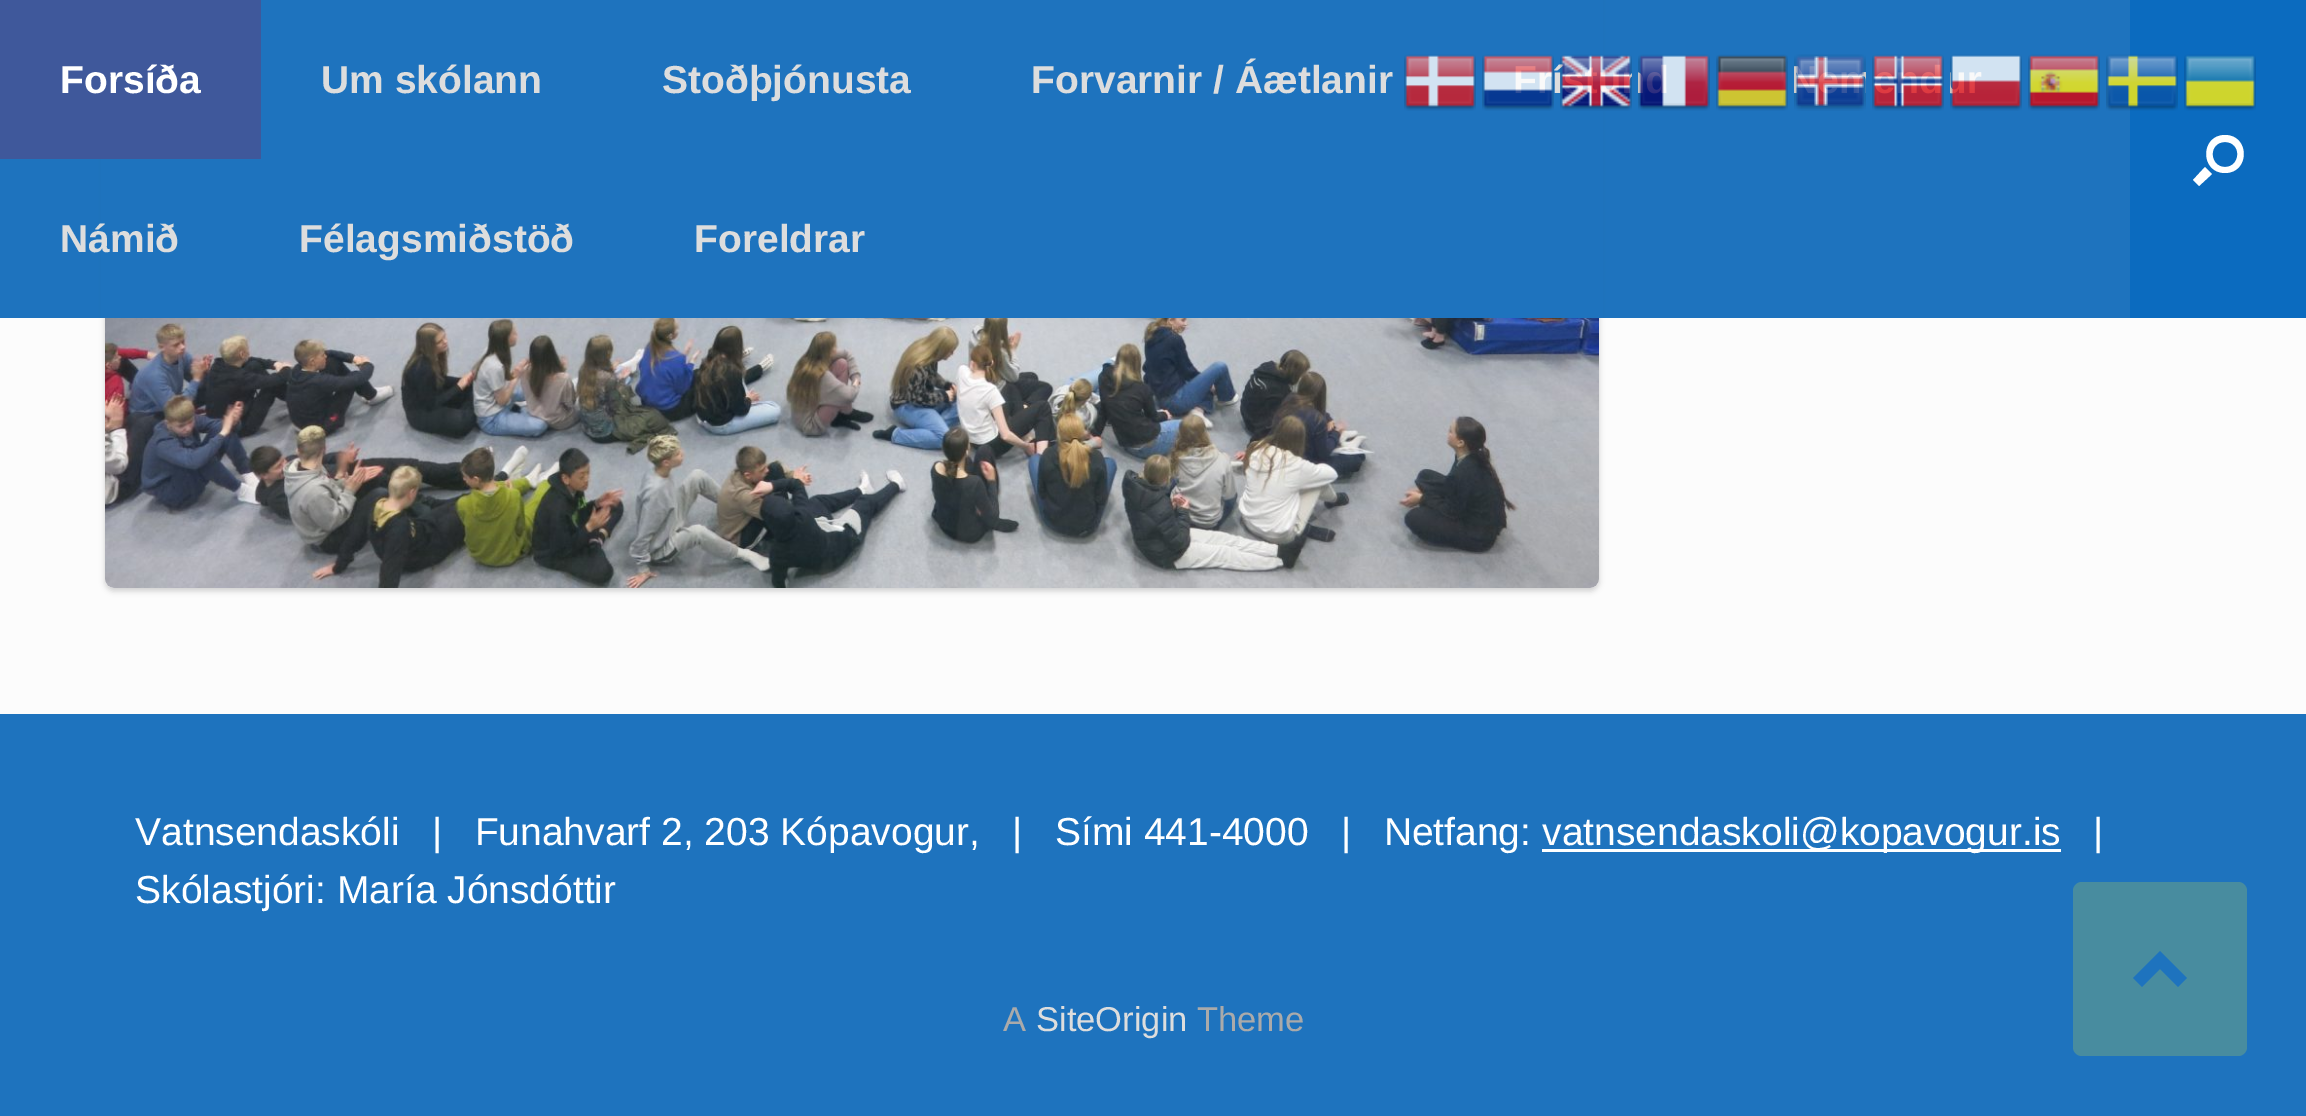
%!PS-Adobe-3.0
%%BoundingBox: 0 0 2306 1116
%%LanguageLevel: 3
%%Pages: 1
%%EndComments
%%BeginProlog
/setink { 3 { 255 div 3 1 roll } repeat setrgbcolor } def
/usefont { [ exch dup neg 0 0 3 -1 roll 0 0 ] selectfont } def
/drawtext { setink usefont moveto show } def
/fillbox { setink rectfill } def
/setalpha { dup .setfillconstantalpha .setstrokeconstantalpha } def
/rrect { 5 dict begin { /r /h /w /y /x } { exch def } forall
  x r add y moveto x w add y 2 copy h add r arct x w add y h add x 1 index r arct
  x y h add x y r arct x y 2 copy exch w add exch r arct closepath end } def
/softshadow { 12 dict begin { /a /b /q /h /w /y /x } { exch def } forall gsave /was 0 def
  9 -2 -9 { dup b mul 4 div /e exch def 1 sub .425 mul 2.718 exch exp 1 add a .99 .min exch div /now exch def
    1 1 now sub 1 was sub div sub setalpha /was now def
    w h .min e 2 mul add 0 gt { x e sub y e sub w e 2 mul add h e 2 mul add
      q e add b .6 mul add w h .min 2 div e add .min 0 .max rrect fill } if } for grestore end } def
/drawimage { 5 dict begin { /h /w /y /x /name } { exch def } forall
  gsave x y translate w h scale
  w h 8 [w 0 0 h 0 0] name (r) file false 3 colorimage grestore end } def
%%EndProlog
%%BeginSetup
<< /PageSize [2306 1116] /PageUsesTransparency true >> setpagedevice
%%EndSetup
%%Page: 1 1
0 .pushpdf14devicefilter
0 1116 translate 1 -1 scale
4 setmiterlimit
0 0 2306 1116 30 115 190 fillbox
0 318 2306 396 252 252 252 fillbox
0 0 0 setink
105 -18 1494 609 9 3 0.18 softshadow
101 0 1502 318 30 115 190 fillbox
(assets/img1.rgb) 1404 54 72 57 drawimage
(assets/img2.rgb) 1482 54 72 57 drawimage
(í) 1552 93 /LiberationSans-Bold 39 221 221 221 drawtext
(assets/img3.rgb) 1560 54 72 57 drawimage
(assets/img4.rgb) 1638 54 72 57 drawimage
(assets/img5.rgb) 1716 54 72 57 drawimage
(assets/img6.rgb) 1794 54 72 57 drawimage
(assets/img7.rgb) 1872 54 72 57 drawimage
(assets/img8.rgb) 1950 54 72 57 drawimage
(assets/img9.rgb) 2028 54 72 57 drawimage
2130 0 176 318 11 107 191 fillbox
(assets/img10.rgb) 2106 54 72 57 drawimage
(assets/img11.rgb) 2184 54 72 57 drawimage
(assets/img12.rgb) 105 318 1494 270 drawimage
0 0 261 159 63 88 155 fillbox
(Forsíða) 60 93 /LiberationSans-Bold 39 255 255 255 drawtext
(Um skólann) 321 93 /LiberationSans-Bold 39 221 221 221 drawtext
(Stoðþjónusta) 662 93 /LiberationSans-Bold 39 221 221 221 drawtext
(Forvarnir / Áætlanir) 1031 93 /LiberationSans-Bold 39 221 221 221 drawtext
(Námið) 60 252 /LiberationSans-Bold 39 221 221 221 drawtext
(Félagsmiðstöð) 299 252 /LiberationSans-Bold 39 221 221 221 drawtext
(Foreldrar) 694 252 /LiberationSans-Bold 39 221 221 221 drawtext
255 255 255 setink
2225 142 moveto 2242 142 2241 167 2225 167 curveto 2209 167 2208 142 2225 142 curveto closepath 2225 135 moveto 2200 135 2200 173 2225 173 curveto 2250 173 2250 135 2225 135 curveto closepath 2205 167 moveto 2212 174 lineto 2199 186 lineto 2193 180 lineto closepath fill
(Vatnsendaskóli   |   Funahvarf 2, 203 Kópavogur,   |   Sími 441-4000   |   Netfang:) 135 845 /LiberationSans-Regular 39 255 255 255 drawtext
1542 849 519 3 255 255 255 fillbox
(vatnsendaskoli@kopavogur.is) 1542 845 /LiberationSans-Regular 39 255 255 255 drawtext
(|) 2093 845 /LiberationSans-Regular 39 255 255 255 drawtext
(Skólastjóri: María Jónsdóttir) 135 903 /LiberationSans-Regular 39 255 255 255 drawtext
(A) 1003 1031 /LiberationSans-Regular 34.5 170 170 170 drawtext
(SiteOrigin) 1036 1031 /LiberationSans-Regular 34.5 221 221 221 drawtext
(Theme) 1197 1031 /LiberationSans-Regular 34.5 170 170 170 drawtext
72 140 159 setink
2073 882 174 174 9 rrect fill
30 115 190 setink
2187 978 moveto 2160 951 lineto 2133 978 lineto 2142 987 lineto 2160 969 lineto 2178 987 lineto closepath fill
.poppdf14devicefilter showpage
%%EOF
